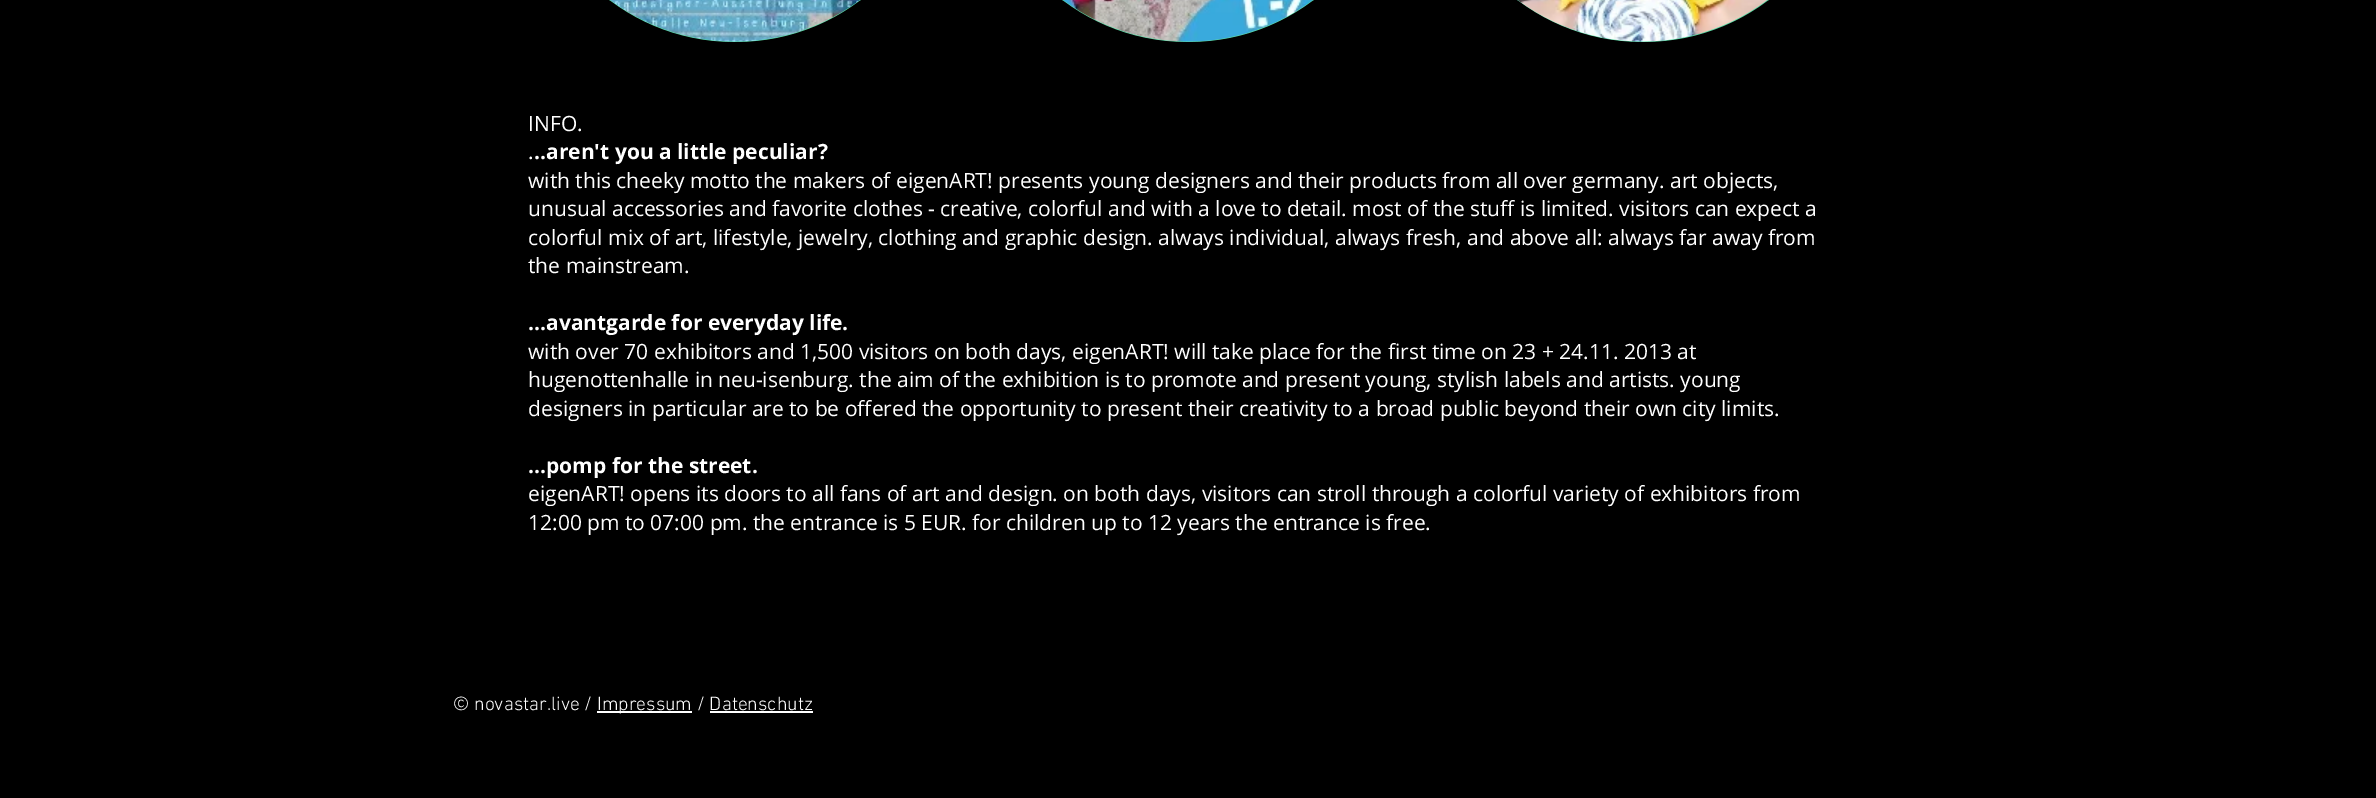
%!PS-Adobe-3.0
%%BoundingBox: 0 0 2376 798
%%LanguageLevel: 3
%%Pages: 1
%%EndComments
%%BeginProlog
/setink { 3 { 255 div 3 1 roll } repeat setrgbcolor } def
/usefont { [ exch dup neg 0 0 3 -1 roll 0 0 ] selectfont } def
/drawtext { setink usefont moveto show } def
/fillbox { setink rectfill } def
/rrect { 5 dict begin { /r /h /w /y /x } { exch def } forall
  x r add y moveto x w add y 2 copy h add r arct x w add y h add x 1 index r arct
  x y h add x y r arct x y 2 copy exch w add exch r arct closepath end } def
/drawimage { 5 dict begin { /h /w /y /x /name } { exch def } forall
  gsave x y translate w h scale
  w h 8 [w 0 0 h 0 0] name (r) file false 3 colorimage grestore end } def
%%EndProlog
%%BeginSetup
<< /PageSize [2376 798] >> setpagedevice
%%EndSetup
%%Page: 1 1
0 798 translate 1 -1 scale
4 setmiterlimit
0 0 2376 798 0 0 0 fillbox
90 219 166 setink
528 -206 414 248 206 rrect fill
(assets/img1.rgb) 610 0 250 42 drawimage
981 -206 414 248 206 rrect fill
(assets/img2.rgb) 1063 0 250 42 drawimage
1436 -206 414 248 206 rrect fill
(assets/img3.rgb) 1518 0 250 42 drawimage
(INFO.) 528 131 /OpenSans-Regular 21 255 255 255 drawtext
(.) 528 159 /OpenSans-Regular 21 255 255 255 drawtext
(..aren't you a little peculiar?) 534 159 /OpenSans-Bold 21 255 255 255 drawtext
(with this cheeky motto the makers of eigenART! presents young designers and their products from all over germany. art objects,) 528 188 /OpenSans-Regular 21 255 255 255 drawtext
(unusual accessories and favorite clothes - creative, colorful and with a love to detail. most of the stuff is limited. visitors can expect a) 528 216 /OpenSans-Regular 21 255 255 255 drawtext
(colorful mix of art, lifestyle, jewelry, clothing and graphic design. always individual, always fresh, and above all: always far away from) 528 245 /OpenSans-Regular 21 255 255 255 drawtext
(the mainstream.) 528 273 /OpenSans-Regular 21 255 255 255 drawtext
(...avantgarde for everyday life.) 528 330 /OpenSans-Bold 21 255 255 255 drawtext
(with over 70 exhibitors and 1,500 visitors on both days, eigenART! will take place for the first time on 23 + 24.11. 2013 at) 528 359 /OpenSans-Regular 21 255 255 255 drawtext
(hugenottenhalle in neu-isenburg. the aim of the exhibition is to promote and present young, stylish labels and artists. young) 528 387 /OpenSans-Regular 21 255 255 255 drawtext
(designers in particular are to be offered the opportunity to present their creativity to a broad public beyond their own city limits.) 528 416 /OpenSans-Regular 21 255 255 255 drawtext
(...pomp for the street.) 528 473 /OpenSans-Bold 21 255 255 255 drawtext
(eigenART! opens its doors to all fans of art and design. on both days, visitors can stroll through a colorful variety of exhibitors from) 528 501 /OpenSans-Regular 21 255 255 255 drawtext
(12:00 pm to 07:00 pm. the entrance is 5 EUR. for children up to 12 years the entrance is free.) 528 530 /OpenSans-Regular 21 255 255 255 drawtext
(© novastar.live /) 453 710 /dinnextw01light-Light 19.5 255 255 255 drawtext
597 711 95 2 255 255 255 fillbox
(Impressum / Datenschutz) 597 710 /dinnextw01light-Light 19.5 255 255 255 drawtext
710 711 103 2 255 255 255 fillbox
showpage
%%EOF
